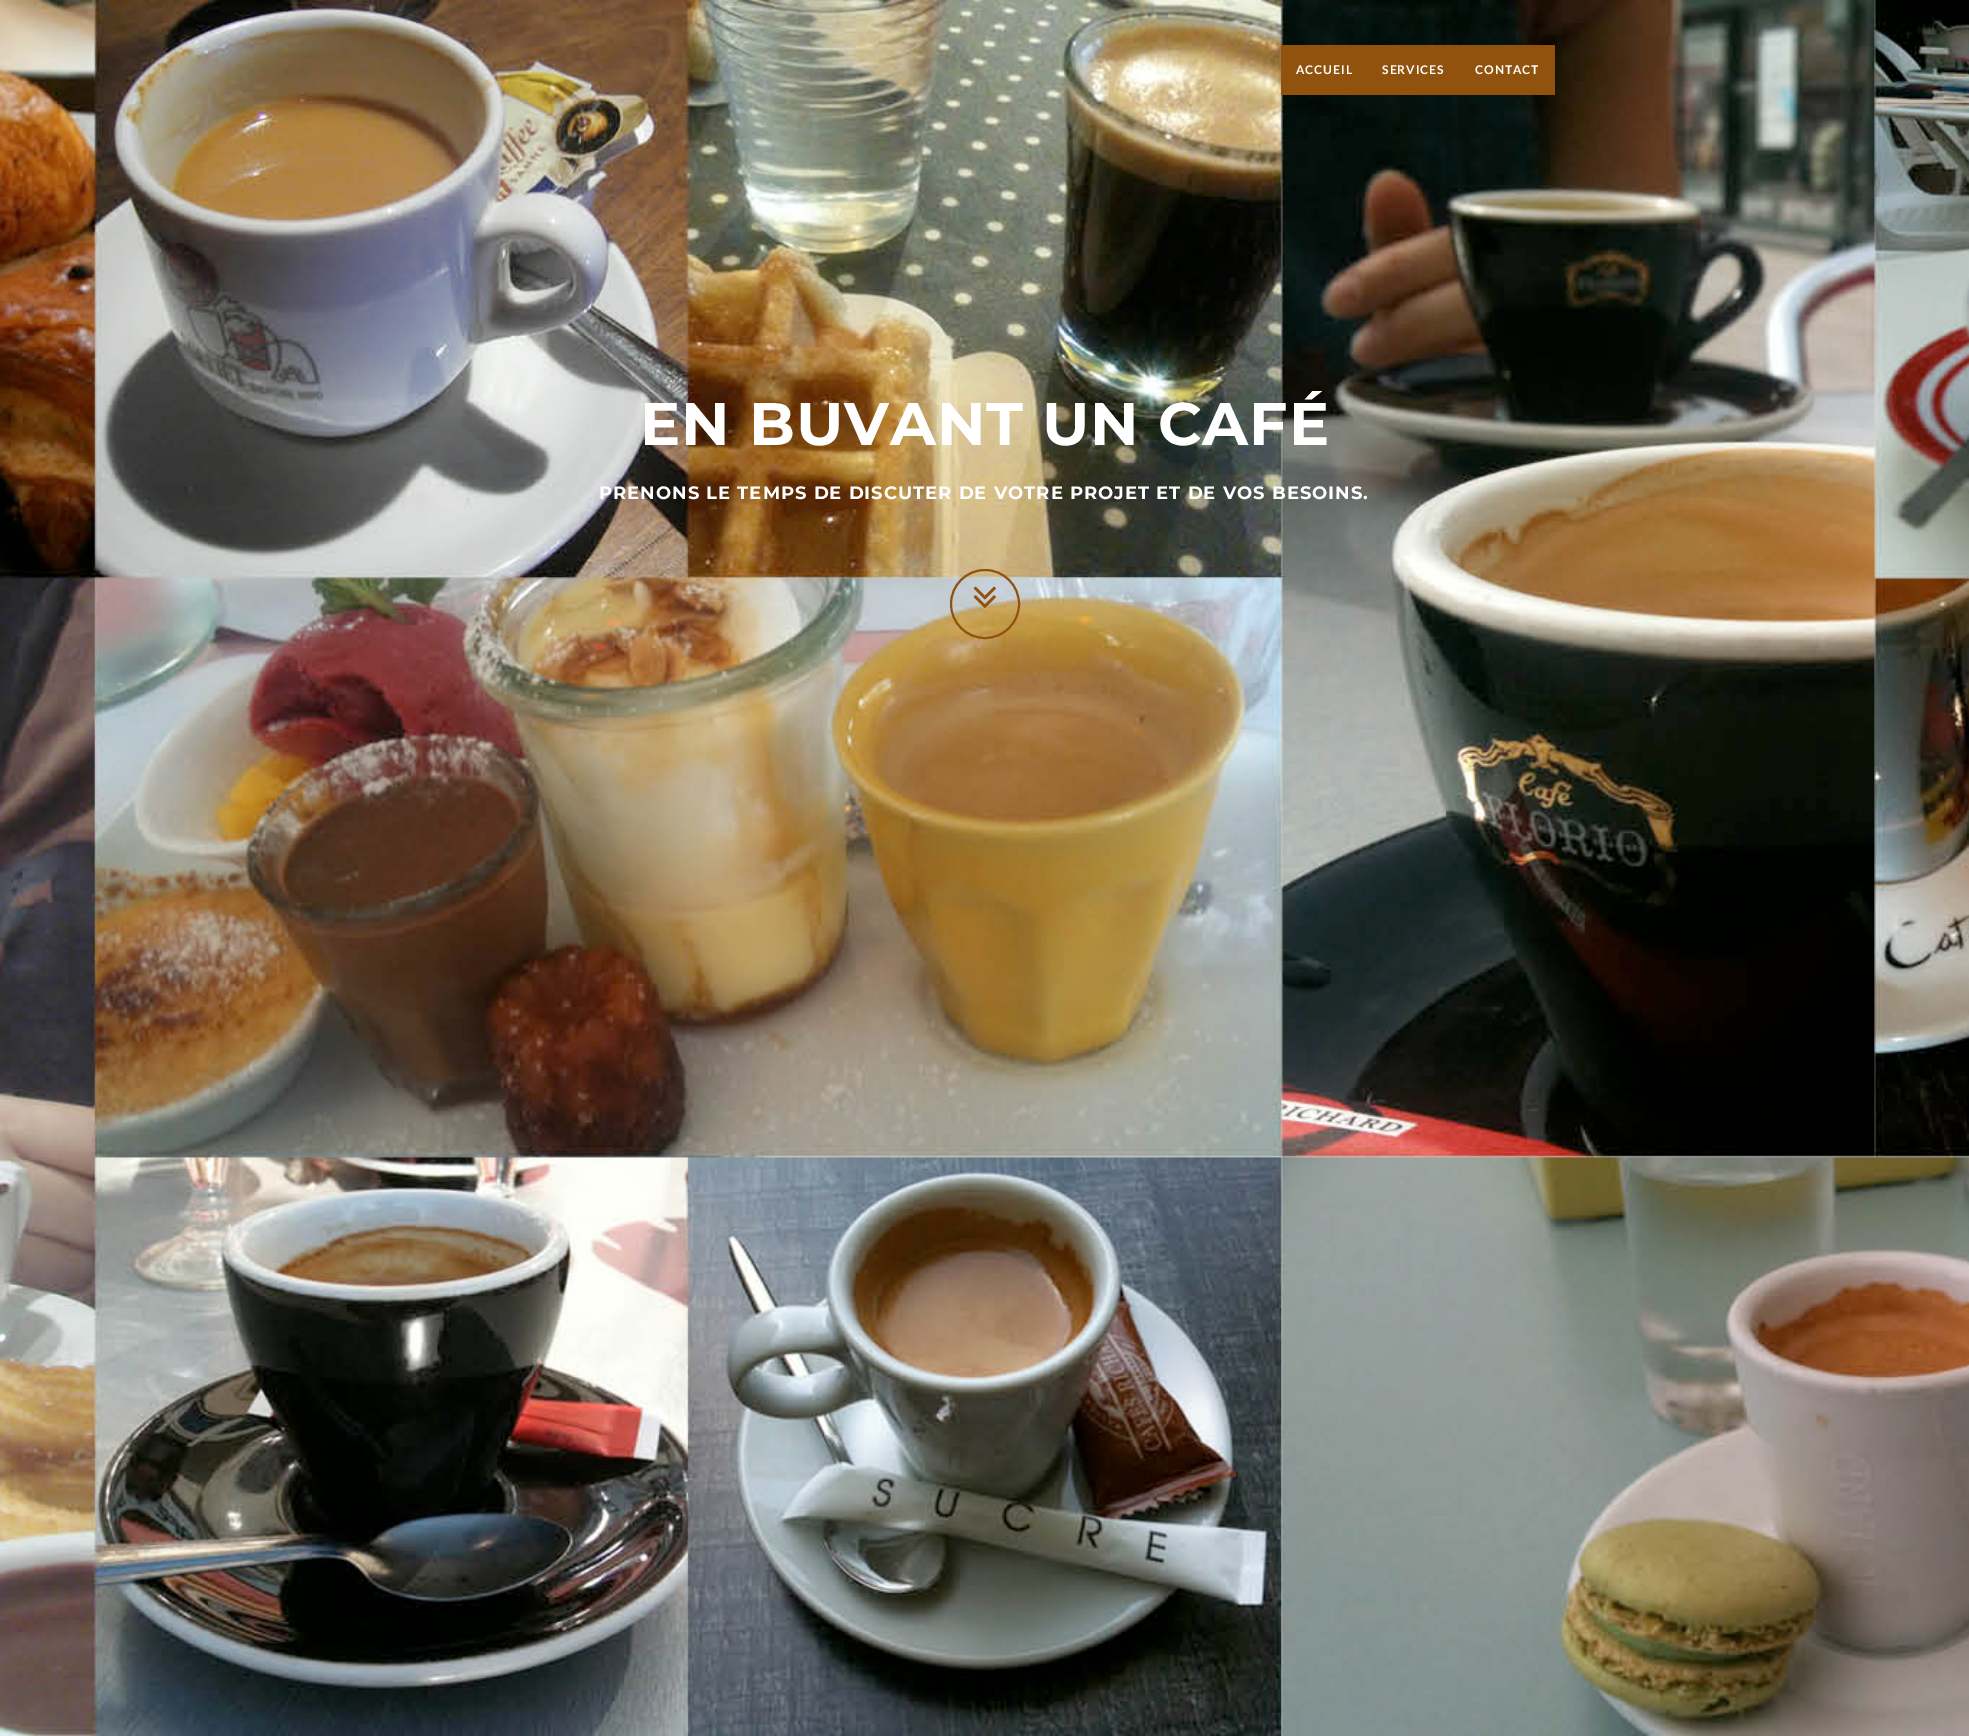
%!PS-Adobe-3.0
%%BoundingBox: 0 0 1969 1736
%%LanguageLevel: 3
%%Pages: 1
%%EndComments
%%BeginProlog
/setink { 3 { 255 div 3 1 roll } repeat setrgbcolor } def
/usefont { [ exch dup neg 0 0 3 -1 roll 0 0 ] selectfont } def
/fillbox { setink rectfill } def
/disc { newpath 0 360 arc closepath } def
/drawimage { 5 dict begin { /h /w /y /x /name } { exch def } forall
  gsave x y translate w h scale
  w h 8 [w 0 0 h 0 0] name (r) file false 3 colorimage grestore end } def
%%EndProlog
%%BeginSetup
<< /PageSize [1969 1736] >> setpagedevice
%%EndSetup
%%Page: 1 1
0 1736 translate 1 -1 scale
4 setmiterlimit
0 0 1969 1736 255 255 255 fillbox
(assets/img1.rgb) 0 0 1969 1736 drawimage
1281 45 274 50 144 82 12 fillbox
/Lato-Bold 12 usefont
255 255 255 setink
1296 74 moveto 1 0 (ACCUEIL) ashow
1382 74 moveto 1 0 (SERVICES) ashow
1475 74 moveto 1 0 (CONTACT) ashow
/Montserrat-Bold 60 usefont
640 445 moveto 1 0 (EN BUVANT UN CAFÉ) ashow
/Montserrat-Bold 18 usefont
599 499 moveto 1 0 (PRENONS LE TEMPS DE DISCUTER DE VOTRE PROJET ET DE VOS BESOINS.) ashow
144 82 12 setink
2 setlinewidth
985 604 34 disc stroke
(assets/img2.rgb) 973 586 23 22 drawimage
showpage
%%EOF
